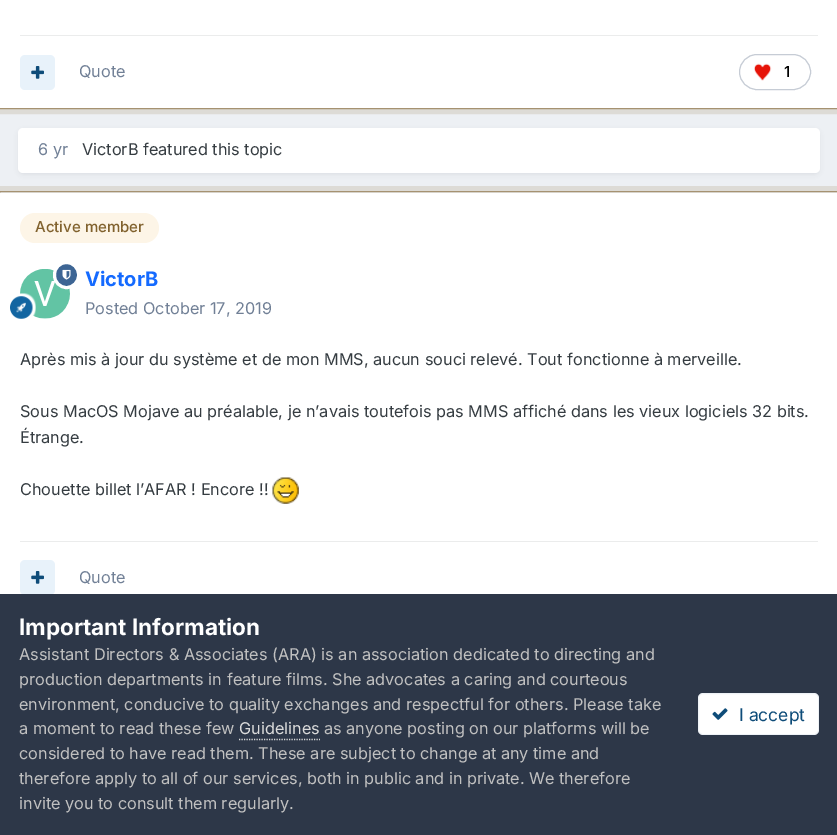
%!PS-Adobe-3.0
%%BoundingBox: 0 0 837 835
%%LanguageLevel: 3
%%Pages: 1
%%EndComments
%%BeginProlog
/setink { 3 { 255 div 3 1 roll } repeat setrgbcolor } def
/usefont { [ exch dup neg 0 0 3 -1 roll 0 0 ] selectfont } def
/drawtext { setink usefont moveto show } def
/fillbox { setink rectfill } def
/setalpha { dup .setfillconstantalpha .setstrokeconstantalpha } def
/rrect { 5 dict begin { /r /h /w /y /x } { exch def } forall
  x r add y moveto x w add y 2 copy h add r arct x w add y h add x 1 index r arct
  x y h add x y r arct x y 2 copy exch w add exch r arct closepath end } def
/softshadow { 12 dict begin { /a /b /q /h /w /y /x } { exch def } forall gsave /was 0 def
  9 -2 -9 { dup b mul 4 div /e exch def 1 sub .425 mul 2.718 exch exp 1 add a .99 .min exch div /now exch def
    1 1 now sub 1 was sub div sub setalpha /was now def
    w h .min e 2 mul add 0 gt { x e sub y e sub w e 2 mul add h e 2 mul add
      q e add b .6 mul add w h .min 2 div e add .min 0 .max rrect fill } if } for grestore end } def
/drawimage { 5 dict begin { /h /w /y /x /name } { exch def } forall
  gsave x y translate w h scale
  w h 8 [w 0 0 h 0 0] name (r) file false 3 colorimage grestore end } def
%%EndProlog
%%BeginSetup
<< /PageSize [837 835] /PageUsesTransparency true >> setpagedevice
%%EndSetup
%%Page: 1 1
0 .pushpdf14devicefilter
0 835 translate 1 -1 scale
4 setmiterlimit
0 0 837 835 237 240 244 fillbox
221 219 214 setink
6 setlinewidth
-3 -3 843 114 rectstroke
166 146 113 setink
1 setlinewidth
-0.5 -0.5 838 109 rectstroke
0 0 837 108 255 255 255 fillbox
20 35 798 1 235 236 236 fillbox
232 242 250 setink
20 55 35 35 5 rrect fill
(assets/img1.rgb) 31 66 13 13 drawimage
(Quote) 79 77 /Inter-Regular 16.25 113 128 150 drawtext
198 204 213 setink
739.5 54.5 71 35 17.5 rrect stroke
(assets/img2.rgb) 754 63 18 18 drawimage
(1) 784 77 /Inter-Medium 15 0 0 0 drawtext
45 55 72 setink
19 131 800 43 4 2.5 0.1 softshadow
255 255 255 setink
18 128 802 45 5 rrect fill
(6 yr) 38 155 /Inter-Regular 16.25 113 128 150 drawtext
(VictorB featured this topic) 82 155 /Inter-Regular 16.25 53 60 65 drawtext
221 219 214 setink
6 setlinewidth
-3 189 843 428 rectstroke
166 146 113 setink
1 setlinewidth
-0.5 191.5 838 423 rectstroke
0 193 837 401 255 255 255 fillbox
253 245 231 setink
20 213 139 30 15 rrect fill
(Active member) 35 232 /Inter-Medium 15 129 98 46 drawtext
(assets/img4.rgb) 20 269 50 50 drawimage
61 101 148 setink
54.5 262.5 24 25 12 rrect gsave fill grestore
255 255 255 setink
3 setlinewidth
stroke
(assets/img3.rgb) 62 269 9 11 drawimage
(assets/img5.rgb) 10 293 26 26 drawimage
(VictorB) 85 286 /Inter-Bold 20 20 106 255 drawtext
(Posted October 17, 2019) 85 314 /Inter-Regular 16.25 113 128 150 drawtext
(Après mis à jour du système et de mon MMS, aucun souci relevé. Tout fonctionne à merveille.) 20 365 /Inter-Regular 16.25 53 60 65 drawtext
(Sous MacOS Mojave au préalable, je n’avais toutefois pas MMS affiché dans les vieux logiciels 32 bits.) 20 417 /Inter-Regular 16.25 53 60 65 drawtext
(Étrange.) 20 443 /Inter-Regular 16.25 53 60 65 drawtext
(Chouette billet l’AFAR ! Encore !!) 20 495 /Inter-Regular 16.25 53 60 65 drawtext
(assets/img6.rgb) 272 477 27 27 drawimage
20 541 798 1 235 236 236 fillbox
232 242 250 setink
20 560 35 35 5 rrect fill
(assets/img1.rgb) 31 571 13 13 drawimage
(Quote) 79 583 /Inter-Regular 16.25 113 128 150 drawtext
0 594 837 241 45 55 72 fillbox
(Important Information) 19 635 /Inter-Bold 22.5 255 255 255 drawtext
(Assistant Directors & Associates \(ARA\) is an association dedicated to directing and) 19 660 /Inter-Regular 16.25 192 192 192 drawtext
(production departments in feature films. She advocates a caring and courteous) 19 685 /Inter-Regular 16.25 192 192 192 drawtext
(environment, conducive to quality exchanges and respectful for others. Please take) 19 710 /Inter-Regular 16.25 192 192 192 drawtext
(a moment to read these few) 19 734 /Inter-Regular 16.25 192 192 192 drawtext
(Guidelines) 239 734 /Inter-Regular 16.25 218 218 218 drawtext
1.2 setlinewidth
[1.25 1.25] 0 setdash
239 739.5 moveto 320 739.5 lineto stroke
(as anyone posting on our platforms will be) 324 734 /Inter-Regular 16.25 192 192 192 drawtext
(considered to have read them. These are subject to change at any time and) 19 759 /Inter-Regular 16.25 192 192 192 drawtext
(therefore apply to all of our services, both in public and in private. We therefore) 19 784 /Inter-Regular 16.25 192 192 192 drawtext
(invite you to consult them regularly.) 19 809 /Inter-Regular 16.25 192 192 192 drawtext
255 255 255 setink
698 693 121 42 5 rrect fill
0.07 setalpha
14 76 121 setink
1 setlinewidth
[] 0 setdash
698.5 693.5 120 41 4.5 rrect stroke
1 setalpha
(assets/img7.rgb) 712 708 16 12 drawimage
(I accept) 739 721 /Inter-Regular 17.5 14 76 121 drawtext
.poppdf14devicefilter showpage
%%EOF
